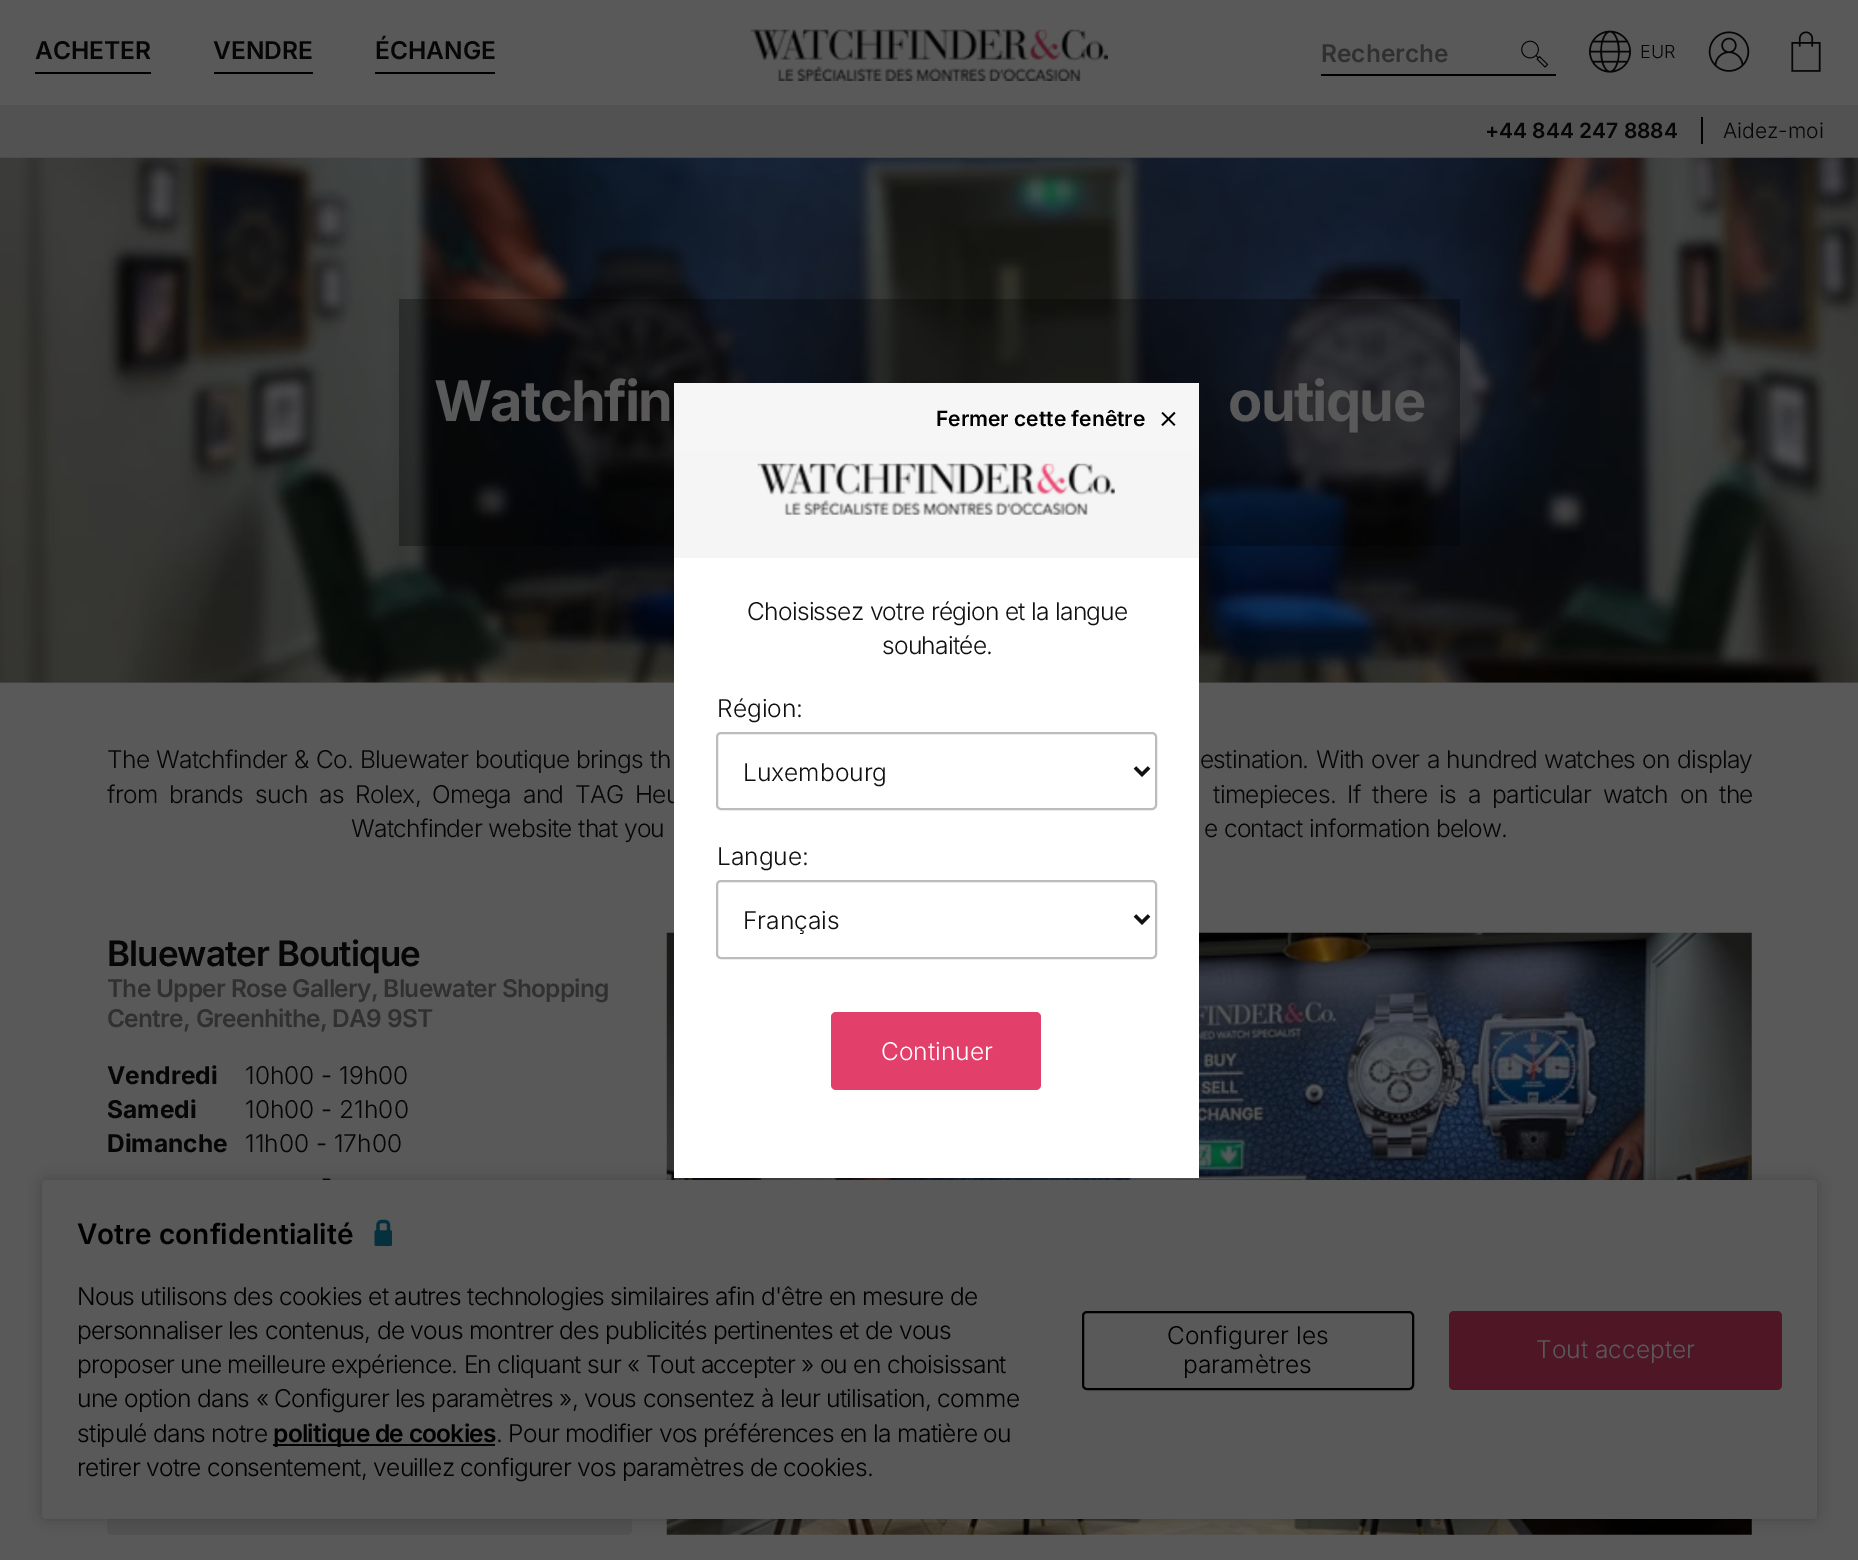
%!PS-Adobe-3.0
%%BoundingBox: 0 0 1858 1560
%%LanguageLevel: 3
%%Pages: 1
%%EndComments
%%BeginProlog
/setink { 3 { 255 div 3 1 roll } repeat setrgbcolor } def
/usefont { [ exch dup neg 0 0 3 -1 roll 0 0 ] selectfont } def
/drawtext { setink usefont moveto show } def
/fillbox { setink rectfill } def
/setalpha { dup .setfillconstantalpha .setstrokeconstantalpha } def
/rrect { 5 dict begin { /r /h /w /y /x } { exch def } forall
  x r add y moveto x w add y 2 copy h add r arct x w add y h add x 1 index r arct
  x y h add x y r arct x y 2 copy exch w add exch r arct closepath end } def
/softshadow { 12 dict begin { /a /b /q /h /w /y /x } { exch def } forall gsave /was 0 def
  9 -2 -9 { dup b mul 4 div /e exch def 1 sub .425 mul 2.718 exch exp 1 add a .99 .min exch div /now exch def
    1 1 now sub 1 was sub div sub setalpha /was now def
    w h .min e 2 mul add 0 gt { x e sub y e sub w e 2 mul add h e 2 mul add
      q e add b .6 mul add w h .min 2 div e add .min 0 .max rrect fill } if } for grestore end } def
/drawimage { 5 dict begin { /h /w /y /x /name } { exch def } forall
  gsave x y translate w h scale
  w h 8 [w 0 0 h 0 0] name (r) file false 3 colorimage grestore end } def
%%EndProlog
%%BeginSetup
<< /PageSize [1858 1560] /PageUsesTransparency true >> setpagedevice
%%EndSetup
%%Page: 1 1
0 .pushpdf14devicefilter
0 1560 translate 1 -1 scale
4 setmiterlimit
0 0 1858 1560 82 82 82 fillbox
0 0 1858 105 89 89 89 fillbox
35 72 116 2 0 0 0 fillbox
(ACHETER) 35 59 /Inter-SemiBold 24.5 6 6 6 drawtext
214 72 99 2 0 0 0 fillbox
(VENDRE) 213 59 /Inter-SemiBold 24.5 6 6 6 drawtext
375 72 120 2 0 0 0 fillbox
(ÉCHANGE) 375 59 /Inter-SemiBold 24.5 6 6 6 drawtext
(assets/img1.rgb) 750 29 358 52 drawimage
1321 74 235 2 0 0 0 fillbox
(Recherche) 1321 62 /Inter-SemiBold 24.5 48 48 48 drawtext
(assets/img2.rgb) 1521 40 28 28 drawimage
(assets/img3.rgb) 1589 30 42 43 drawimage
(EUR) 1640 58 /Inter-Light 18 6 6 6 drawtext
(assets/img4.rgb) 1708 31 42 41 drawimage
(assets/img5.rgb) 1791 31 30 41 drawimage
(+44 844 247 8884) 1485 138 /Inter-SemiBold 21 6 6 6 drawtext
(Aidez-moi) 1723 138 /Inter-Light 21 6 6 6 drawtext
1701 117 2 27 0 0 0 fillbox
0 683 1858 877 89 89 89 fillbox
0 682 1858 1 79 79 79 fillbox
(assets/img6.rgb) 0 157 1858 526 drawimage
0.3 setalpha
399 299 1061 247 0 0 0 fillbox
/Inter-Bold 56 usefont
1 setalpha
89 89 89 setink
434 421 moveto -1.75 0 (Watchfin) ashow
1228 421 moveto -1.75 0 (outique) ashow
/Inter-Light 24.5 usefont
6 6 6 setink
107 768 moveto 1 0 32 -0.73 0 (The Watchfinder & Co. Bluewater boutique brings th) awidthshow
1200 768 moveto 1 0 32 -0.73 0 (estination. With over a hundred watches on display) awidthshow
107 803 moveto 5.5 0 32 -0.73 0 (from brands such as Rolex, Omega and TAG Heu) awidthshow
1213 803 moveto 5.5 0 32 -0.73 0 (timepieces. If there is a particular watch on the) awidthshow
351 837 moveto -0.73 0 (Watchfinder website that you) ashow
1204 837 moveto -0.73 0 (e contact information below.) ashow
/Inter-SemiBold 35 usefont
107 966 moveto -1 0 (Bluewater Boutique) ashow
/Inter-SemiBold 24.5 usefont
48 48 48 setink
107 997 moveto -0.73 0 (The Upper Rose Gallery, Bluewater Shopping) ashow
107 1027 moveto -0.73 0 (Centre, Greenhithe, DA9 9ST) ashow
(Vendredi) 107 1084 /Inter-Bold 24.5 6 6 6 drawtext
(10h00 - 19h00) 245 1084 /Inter-Light 24.5 6 6 6 drawtext
(Samedi) 107 1118 /Inter-Bold 24.5 6 6 6 drawtext
(10h00 - 21h00) 245 1118 /Inter-Light 24.5 6 6 6 drawtext
(Dimanche) 107 1152 /Inter-Bold 24.5 6 6 6 drawtext
(11h00 - 17h00) 245 1152 /Inter-Light 24.5 6 6 6 drawtext
(-) 321 1187 /Inter-Light 24.5 6 6 6 drawtext
82 82 82 setink
107 1456 525 79 5 rrect fill
(assets/img7.rgb) 666 932 1086 603 drawimage
0 0 0 setink
42 1180 1775 339 5 7 0.2 softshadow
674 558 525 620 255 255 255 fillbox
674 383 525 67 246 246 246 fillbox
(Fermer cette fenêtre) 936 426 /Inter-SemiBold 21 0 0 0 drawtext
(×) 1158 428 /Inter-Light 32 0 0 0 drawtext
674 450 525 108 245 245 245 fillbox
(assets/img8.rgb) 757 463 358 52 drawimage
/Inter-Light 24.5 usefont
17 17 17 setink
747 620 moveto -0.73 0 (Choisissez votre région et la langue) ashow
882 654 moveto -0.73 0 (souhaitée.) ashow
(Région:) 717 717 /Inter-Light 24.5 17 17 17 drawtext
189 188 188 setink
2 setlinewidth
717 733 439 76 4 rrect stroke
17 17 17 setink
3.5 setlinewidth
1135 767.5 moveto 1142 774.5 lineto 1149 767.5 lineto stroke
(Luxembourg) 743 781 /Inter-Light 24.5 17 17 17 drawtext
(Langue:) 717 865 /Inter-Light 24.5 17 17 17 drawtext
189 188 188 setink
2 setlinewidth
717 881 439 77 4 rrect stroke
17 17 17 setink
3.5 setlinewidth
1135 915.5 moveto 1142 922.5 lineto 1149 915.5 lineto stroke
(Français) 743 929 /Inter-Light 24.5 17 17 17 drawtext
226 64 107 setink
831 1012 210 78 5 rrect fill
(Continuer) 881 1060 /Inter-Light 24.5 255 255 255 drawtext
89 89 89 setink
42 1180 1775 339 5 rrect fill
(Votre confidentialité) 77 1244 /Inter-SemiBold 28 0 0 0 drawtext
(assets/img9.rgb) 374 1219 18 27 drawimage
/Inter-Light 24.5 usefont
77 1305 moveto -0.73 0 (Nous utilisons des cookies et autres technologies similaires afin d'être en mesure de) ashow
77 1339 moveto -0.73 0 (personnaliser les contenus, de vous montrer des publicités pertinentes et de vous) ashow
77 1373 moveto -0.73 0 (proposer une meilleure expérience. En cliquant sur « Tout accepter » ou en choisissant) ashow
77 1407 moveto -0.73 0 (une option dans « Configurer les paramètres », vous consentez à leur utilisation, comme) ashow
77 1442 moveto -0.73 0 (stipulé dans notre) ashow
273 1444 222 2 0 0 0 fillbox
/Inter-SemiBold 24.5 usefont
273 1442 moveto -0.73 0 (politique de cookies) ashow
/Inter-Light 24.5 usefont
496 1442 moveto -0.73 0 (. Pour modifier vos préférences en la matière ou) ashow
77 1476 moveto -0.73 0 (retirer votre consentement, veuillez configurer vos paramètres de cookies.) ashow
2 setlinewidth
1083 1312 330 77 4 rrect stroke
(Configurer les) 1167 1344 /Inter-Light 24.5 0 0 0 drawtext
(paramètres) 1183 1373 /Inter-Light 24.5 0 0 0 drawtext
79 22 37 setink
1449 1311 333 79 5 rrect fill
(Tout accepter) 1536 1358 /Inter-Light 24.5 89 89 89 drawtext
.poppdf14devicefilter showpage
%%EOF
